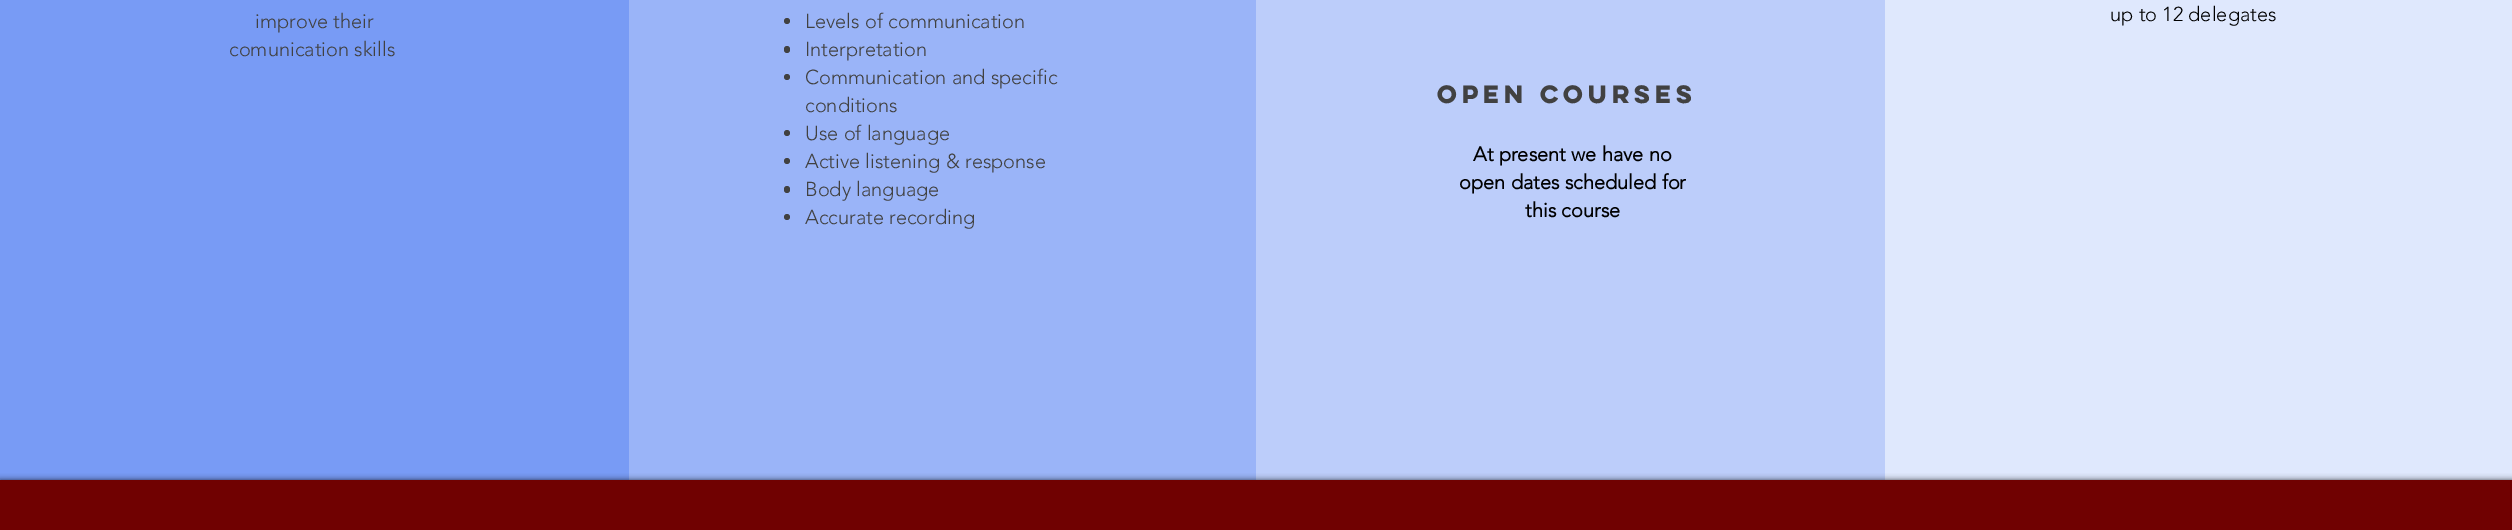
%!PS-Adobe-3.0
%%BoundingBox: 0 0 2512 530
%%LanguageLevel: 3
%%Pages: 1
%%EndComments
%%BeginProlog
/setink { 3 { 255 div 3 1 roll } repeat setrgbcolor } def
/usefont { [ exch dup neg 0 0 3 -1 roll 0 0 ] selectfont } def
/drawtext { setink usefont moveto show } def
/fillbox { setink rectfill } def
/setalpha { dup .setfillconstantalpha .setstrokeconstantalpha } def
/disc { newpath 0 360 arc closepath } def
/rrect { 5 dict begin { /r /h /w /y /x } { exch def } forall
  x r add y moveto x w add y 2 copy h add r arct x w add y h add x 1 index r arct
  x y h add x y r arct x y 2 copy exch w add exch r arct closepath end } def
/softshadow { 12 dict begin { /a /b /q /h /w /y /x } { exch def } forall gsave /was 0 def
  9 -2 -9 { dup b mul 4 div /e exch def 1 sub .425 mul 2.718 exch exp 1 add a .99 .min exch div /now exch def
    1 1 now sub 1 was sub div sub setalpha /was now def
    w h .min e 2 mul add 0 gt { x e sub y e sub w e 2 mul add h e 2 mul add
      q e add b .6 mul add w h .min 2 div e add .min 0 .max rrect fill } if } for grestore end } def
%%EndProlog
%%BeginSetup
<< /PageSize [2512 530] /PageUsesTransparency true >> setpagedevice
%%EndSetup
%%Page: 1 1
0 .pushpdf14devicefilter
0 530 translate 1 -1 scale
4 setmiterlimit
0 0 2512 530 120 155 245 fillbox
(improve their) 255 28 /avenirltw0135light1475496-Light 20 65 65 65 drawtext
(comunication skills) 229 56 /avenirltw0135light1475496-Light 20 65 65 65 drawtext
629 0 627 480 154 180 248 fillbox
65 65 65 setink
787 21 3 disc fill
(Levels of communication) 805 28 /avenirltw0135light1475496-Light 20 65 65 65 drawtext
784 46 6 7 3 rrect fill
(Interpretation) 805 56 /avenirltw0135light1475496-Light 20 65 65 65 drawtext
787 77 3 disc fill
(Communication and specific) 805 84 /avenirltw0135light1475496-Light 20 65 65 65 drawtext
(conditions) 805 112 /avenirltw0135light1475496-Light 20 65 65 65 drawtext
787 133 3 disc fill
(Use of language) 805 140 /avenirltw0135light1475496-Light 20 65 65 65 drawtext
787 161 3 disc fill
(Active listening & response) 805 168 /avenirltw0135light1475496-Light 20 65 65 65 drawtext
784 186 6 7 3 rrect fill
(Body language) 805 196 /avenirltw0135light1475496-Light 20 65 65 65 drawtext
787 217 3 disc fill
(Accurate recording) 805 224 /avenirltw0135light1475496-Light 20 65 65 65 drawtext
1256 0 629 480 188 205 250 fillbox
(Open Courses) 1437 103 /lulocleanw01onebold-Bold 22.5 65 65 65 drawtext
(At present we have no) 1473 161 /avenirltw0135light1475496-Bold 20 0 0 0 drawtext
(open dates scheduled for) 1459 189 /avenirltw0135light1475496-Bold 20 0 0 0 drawtext
(this course) 1525 217 /avenirltw0135light1475496-Bold 20 0 0 0 drawtext
1885 0 627 480 223 232 253 fillbox
(up to 12 delegates) 2110 21 /avenirltw0135light1475496-Light 20 0 0 0 drawtext
0 480 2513 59 0 3 0.7 softshadow
0 480 2512 50 112 1 1 fillbox
.poppdf14devicefilter showpage
%%EOF
